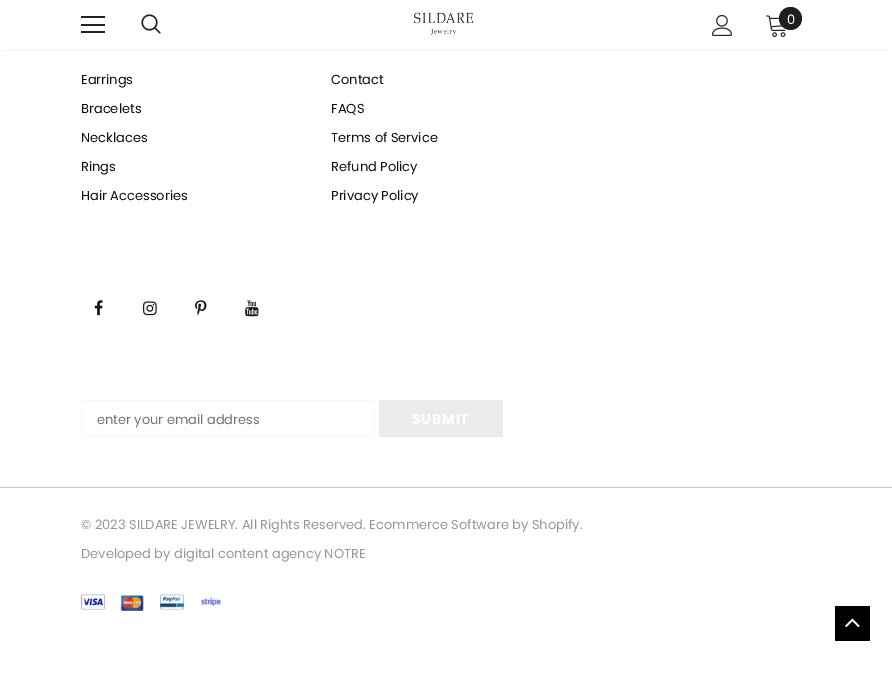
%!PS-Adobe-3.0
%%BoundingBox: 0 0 892 691
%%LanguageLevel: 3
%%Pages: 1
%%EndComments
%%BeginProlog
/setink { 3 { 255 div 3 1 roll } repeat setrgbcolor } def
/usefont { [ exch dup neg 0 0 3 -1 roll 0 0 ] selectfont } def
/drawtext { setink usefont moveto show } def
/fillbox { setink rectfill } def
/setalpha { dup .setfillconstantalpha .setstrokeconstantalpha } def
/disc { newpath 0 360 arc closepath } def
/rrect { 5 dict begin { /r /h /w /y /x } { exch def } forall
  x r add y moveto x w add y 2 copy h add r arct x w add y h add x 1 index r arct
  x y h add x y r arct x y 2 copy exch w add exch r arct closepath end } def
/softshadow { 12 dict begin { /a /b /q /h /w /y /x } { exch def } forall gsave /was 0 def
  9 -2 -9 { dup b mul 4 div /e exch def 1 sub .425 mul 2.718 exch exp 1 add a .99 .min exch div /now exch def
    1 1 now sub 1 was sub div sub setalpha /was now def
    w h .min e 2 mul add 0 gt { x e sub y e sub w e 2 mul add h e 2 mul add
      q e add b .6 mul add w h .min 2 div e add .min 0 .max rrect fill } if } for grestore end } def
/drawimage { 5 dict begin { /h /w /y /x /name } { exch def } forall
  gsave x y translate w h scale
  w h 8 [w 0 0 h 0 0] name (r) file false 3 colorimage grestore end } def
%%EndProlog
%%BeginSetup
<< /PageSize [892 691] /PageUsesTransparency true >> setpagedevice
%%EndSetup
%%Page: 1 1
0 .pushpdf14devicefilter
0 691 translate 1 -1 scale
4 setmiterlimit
0 0 892 691 255 255 255 fillbox
gsave
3 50 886 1 rectclip
0 0 0 setink
3 6 886 44 0 1.5 0.12 softshadow
grestore
81 16 24 2 35 35 35 fillbox
81 24 24 2 35 35 35 fillbox
81 31 24 2 35 35 35 fillbox
(assets/img1.rgb) 141 14 20 20 drawimage
(assets/img2.rgb) 414 12 59 24 drawimage
(assets/img3.rgb) 712 15 20 21 drawimage
(assets/img4.rgb) 766 15 20 22 drawimage
30 30 30 setink
790.5 18.5 11.5 disc fill
(0) 787 24 /Poppins-Regular 13 255 255 255 drawtext
(Earrings) 81 84 /Poppins-Regular 13 11 11 11 drawtext
(Bracelets) 81 113 /Poppins-Regular 13 11 11 11 drawtext
(Necklaces) 81 142 /Poppins-Regular 13 11 11 11 drawtext
(Rings) 81 171 /Poppins-Regular 13 11 11 11 drawtext
(Hair Accessories) 81 200 /Poppins-Regular 13 11 11 11 drawtext
(Contact) 331 84 /Poppins-Regular 13 11 11 11 drawtext
(FAQS) 331 113 /Poppins-Regular 13 11 11 11 drawtext
(Terms of Service) 331 142 /Poppins-Regular 13 11 11 11 drawtext
(Refund Policy) 331 171 /Poppins-Regular 13 11 11 11 drawtext
(Privacy Policy) 331 200 /Poppins-Regular 13 11 11 11 drawtext
(assets/img5.rgb) 94 300 9 16 drawimage
(assets/img6.rgb) 143 301 14 15 drawimage
(assets/img7.rgb) 195 300 12 16 drawimage
(assets/img8.rgb) 245 300 14 17 drawimage
248 248 248 setink
81.5 400.5 292 36 rectstroke
(enter your email address) 97 424 /Poppins-Regular 13 113 113 113 drawtext
379 400 124 37 235 235 235 fillbox
/Poppins-Bold 14 usefont
255 255 255 setink
412 424 moveto 0.75 0 (SUBMIT) ashow
0 487 892 1 201 197 197 fillbox
(© 2023 SILDARE JEWELRY. All Rights Reserved. Ecommerce Software by Shopify.) 81 529 /Poppins-Regular 13 150 150 150 drawtext
(Developed by digital content agency NOTRE) 81 558 /Poppins-Regular 13 150 150 150 drawtext
(assets/img9.rgb) 81 594 24 16 drawimage
(assets/img10.rgb) 120 595 24 16 drawimage
(assets/img11.rgb) 160 594 24 16 drawimage
(assets/img12.rgb) 201 596 20 12 drawimage
835 606 35 35 0 0 0 fillbox
(assets/img13.rgb) 845 618 15 9 drawimage
.poppdf14devicefilter showpage
%%EOF
